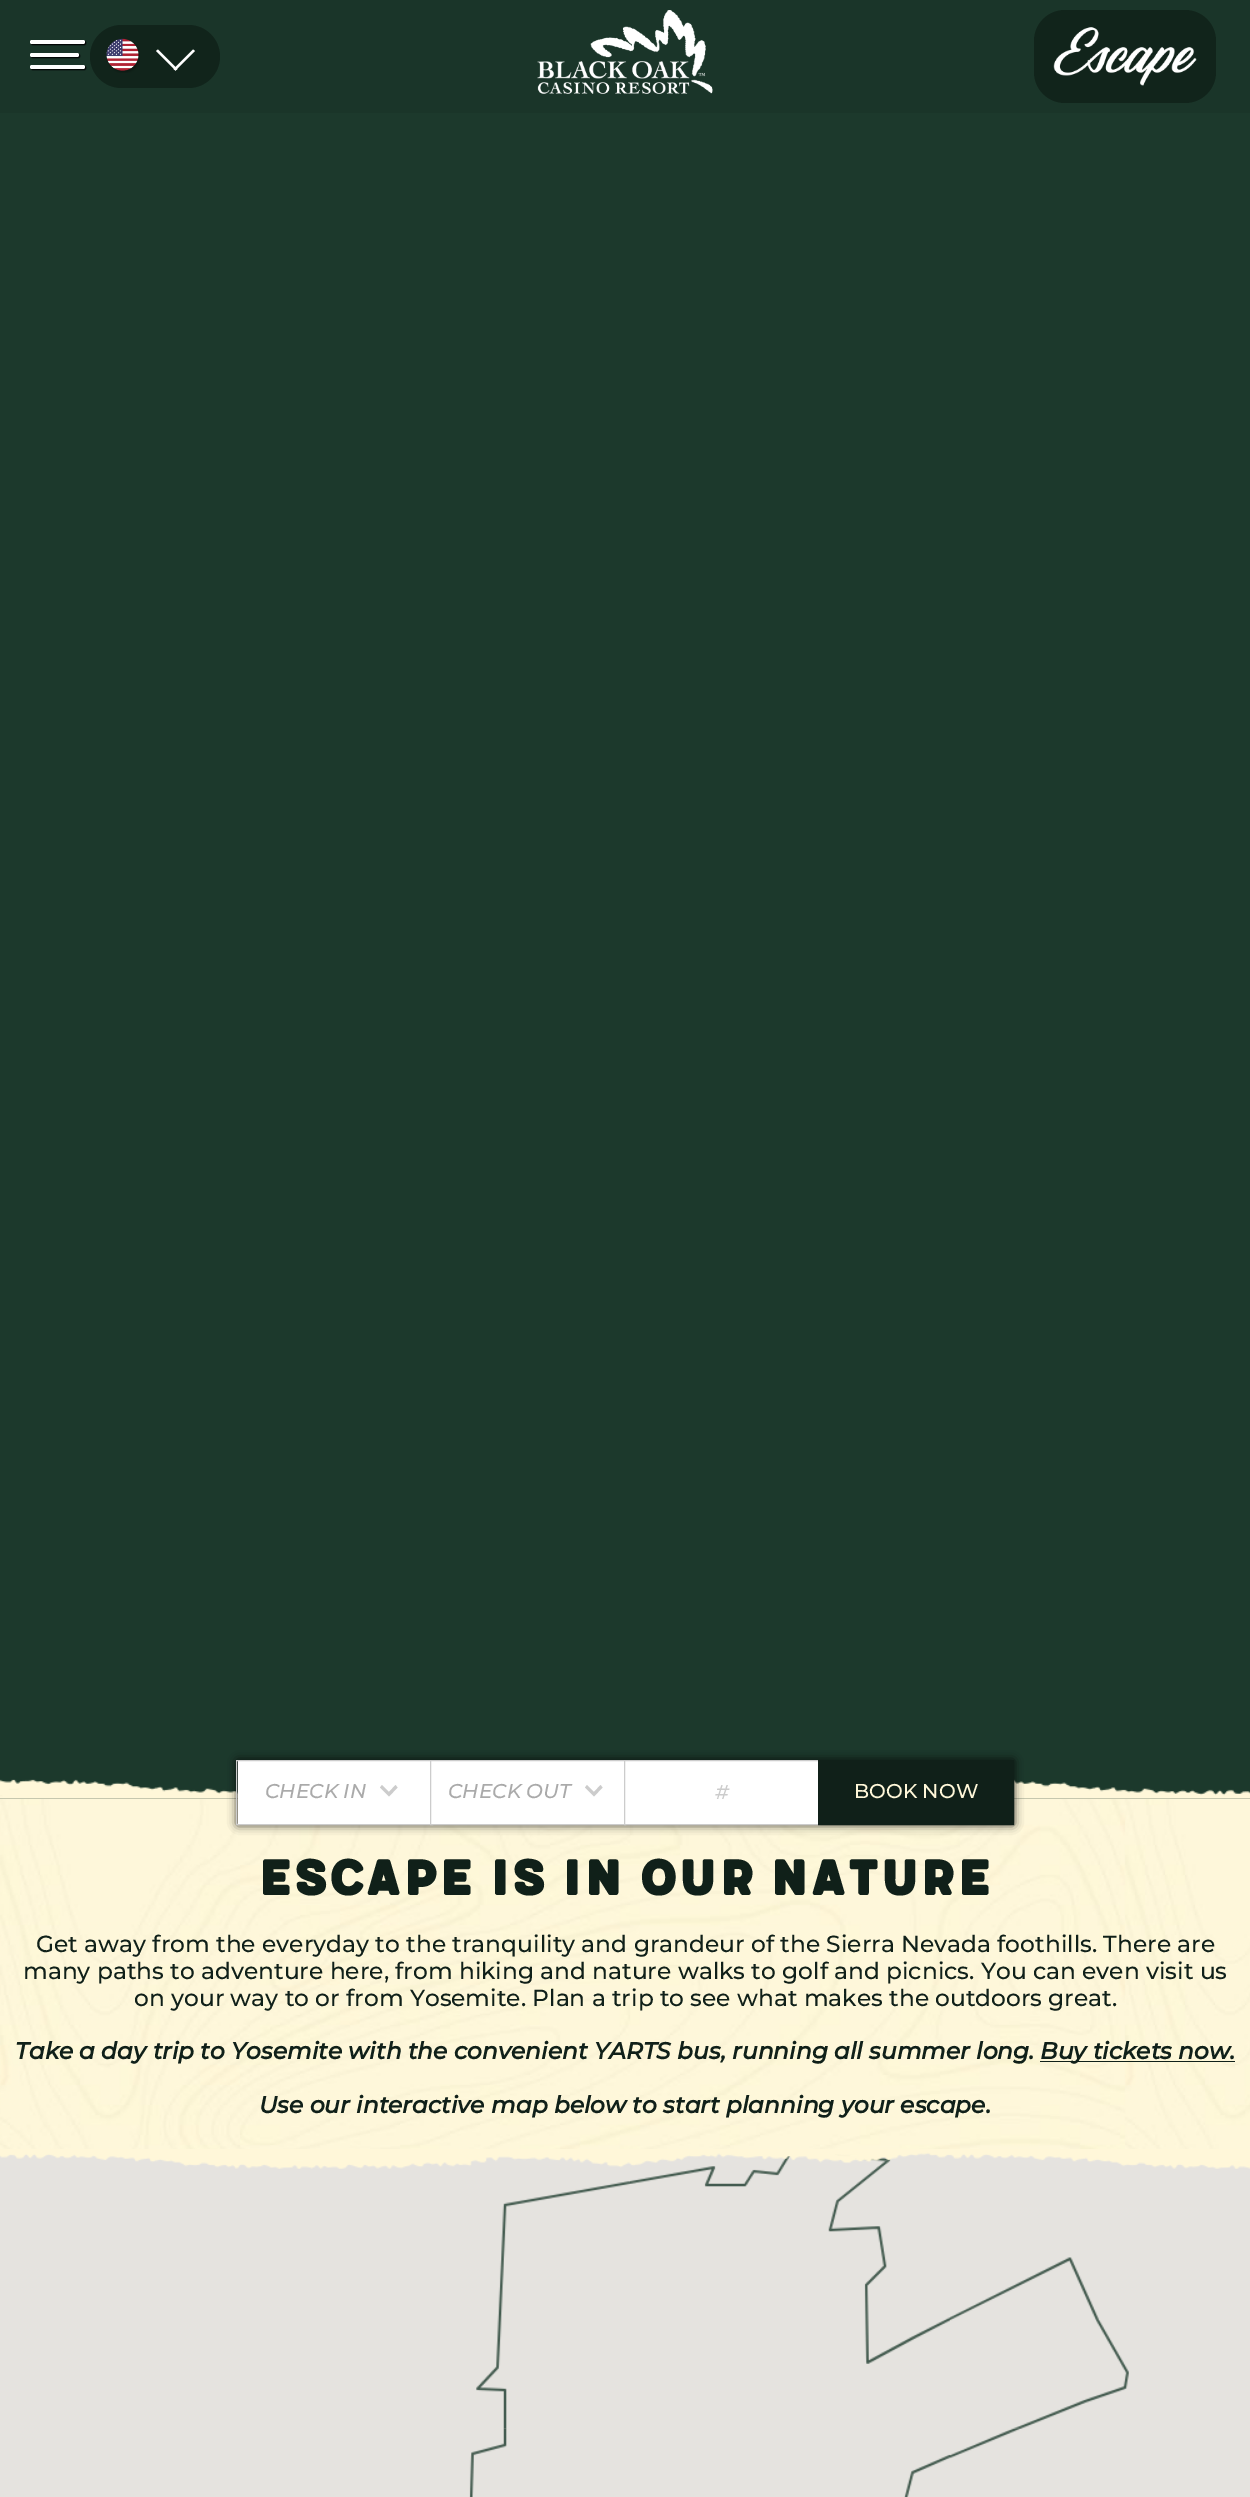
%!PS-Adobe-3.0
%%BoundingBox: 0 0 1250 2497
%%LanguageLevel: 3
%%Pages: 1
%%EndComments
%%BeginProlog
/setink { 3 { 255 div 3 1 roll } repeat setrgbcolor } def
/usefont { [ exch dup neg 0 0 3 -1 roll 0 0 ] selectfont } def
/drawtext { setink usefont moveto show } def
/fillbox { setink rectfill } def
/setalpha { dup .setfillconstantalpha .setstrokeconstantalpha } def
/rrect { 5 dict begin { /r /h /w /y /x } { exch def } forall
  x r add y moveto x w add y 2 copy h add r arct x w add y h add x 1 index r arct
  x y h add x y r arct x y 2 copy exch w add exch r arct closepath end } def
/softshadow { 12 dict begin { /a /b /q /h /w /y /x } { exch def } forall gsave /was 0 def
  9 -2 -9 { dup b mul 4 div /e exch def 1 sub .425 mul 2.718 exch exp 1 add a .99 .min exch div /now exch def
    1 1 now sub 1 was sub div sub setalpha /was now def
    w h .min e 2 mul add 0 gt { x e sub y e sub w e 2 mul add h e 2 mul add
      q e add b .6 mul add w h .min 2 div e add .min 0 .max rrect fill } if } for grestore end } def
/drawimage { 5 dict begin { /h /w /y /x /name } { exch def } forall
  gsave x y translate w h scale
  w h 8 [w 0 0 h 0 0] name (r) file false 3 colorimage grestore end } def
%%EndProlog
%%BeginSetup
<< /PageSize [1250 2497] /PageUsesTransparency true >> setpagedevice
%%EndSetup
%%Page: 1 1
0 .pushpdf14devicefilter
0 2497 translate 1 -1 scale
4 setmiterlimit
0 0 1250 2497 255 255 255 fillbox
(assets/img1.rgb) 0 1799 1250 350 drawimage
0 113 1250 1686 28 57 44 fillbox
0 0 1250 113 26 53 41 fillbox
0 0 0 setink
31 41 55 4 2 0.5 1 softshadow
255 255 255 setink
30 40 55 4 2 rrect fill
0 0 0 setink
31 54 49 4 2 0.5 1 softshadow
255 255 255 setink
30 53 49 4 2 rrect fill
0 0 0 setink
31 66 55 4 2 0.5 1 softshadow
255 255 255 setink
30 65 55 4 2 rrect fill
17 36 27 setink
90 25 130 63 31.5 rrect fill
(assets/img2.rgb) 106 38 34 35 drawimage
255 255 255 setink
195 51 moveto 175.5 70.5 lineto 173.5 69 lineto 193 49.5 lineto closepath fill
177.5 69 moveto 175.5 70.5 lineto 156 51 lineto 158 49.5 lineto closepath fill
(assets/img3.rgb) 537 10 176 84 drawimage
17 36 27 setink
1034 10 182 93 31 rrect fill
(assets/img4.rgb) 1053 27 144 59 drawimage
(assets/img5.rgb) 0 1779 1250 20 drawimage
0 0 0 setink
238 1761 775 63 0 5 1 softshadow
238 1761 192 63 255 255 255 fillbox
204 204 204 setink
236.5 1760.5 196 64 rectstroke
(CHECK IN) 265 1798 /Montserrat-MediumItalic 20 170 170 170 drawtext
204 204 204 setink
395.5 1785 moveto 389 1792 lineto 382 1785 lineto 380 1787.5 lineto 389 1796.5 lineto 397.5 1787.5 lineto closepath fill
431 1761 193 63 255 255 255 fillbox
204 204 204 setink
430.5 1760.5 195 64 rectstroke
(CHECK OUT) 448 1798 /Montserrat-MediumItalic 20 170 170 170 drawtext
204 204 204 setink
600.5 1785 moveto 594 1792 lineto 587 1785 lineto 585 1787.5 lineto 594 1796.5 lineto 602.5 1787.5 lineto closepath fill
625 1761 193 63 255 255 255 fillbox
204 204 204 setink
624.5 1760.5 195 64 rectstroke
(#) 715 1799 /Montserrat-MediumItalic 20 204 204 204 drawtext
819 1761 194 63 16 32 25 fillbox
818.5 1760.5 195 64 rectstroke
(BOOK NOW) 854 1798 /Montserrat-Medium 20 255 247 217 drawtext
/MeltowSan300-Bold 60 usefont
16 32 25 setink
257 1895 moveto 1.25 0 (Escape is in Our Nature) ashow
(Get away from the everyday to the tranquility and grandeur of the Sierra Nevada foothills. There are) 36 1952 /Montserrat-Medium 23.33 16 32 25 drawtext
(many paths to adventure here, from hiking and nature walks to golf and picnics. You can even visit us) 23 1979 /Montserrat-Medium 23.33 16 32 25 drawtext
(on your way to or from Yosemite. Plan a trip to see what makes the outdoors great.) 134 2006 /Montserrat-Medium 23.33 16 32 25 drawtext
(Take a day trip to Yosemite with the convenient YARTS bus, running all summer long.) 15 2059 /Montserrat-BoldItalic 23.33 16 32 25 drawtext
1040 2061 195 1 16 32 25 fillbox
(Buy tickets now.) 1040 2059 /Montserrat-BoldItalic 23.33 16 32 25 drawtext
(Use our interactive map below to start planning your escape.) 259 2113 /Montserrat-BoldItalic 23.33 16 32 25 drawtext
0 2152 1250 345 229 227 223 fillbox
(assets/img8.rgb) 630 2154 320 210 drawimage
(assets/img6.rgb) 0 2149 1250 20 drawimage
(assets/img10.rgb) 469 2428 38 69 drawimage
(assets/img7.rgb) 476 2181 154 248 drawimage
(assets/img11.rgb) 950 2428 70 31 drawimage
(assets/img9.rgb) 950 2257 179 172 drawimage
(assets/img12.rgb) 904 2454 46 43 drawimage
.poppdf14devicefilter showpage
%%EOF
